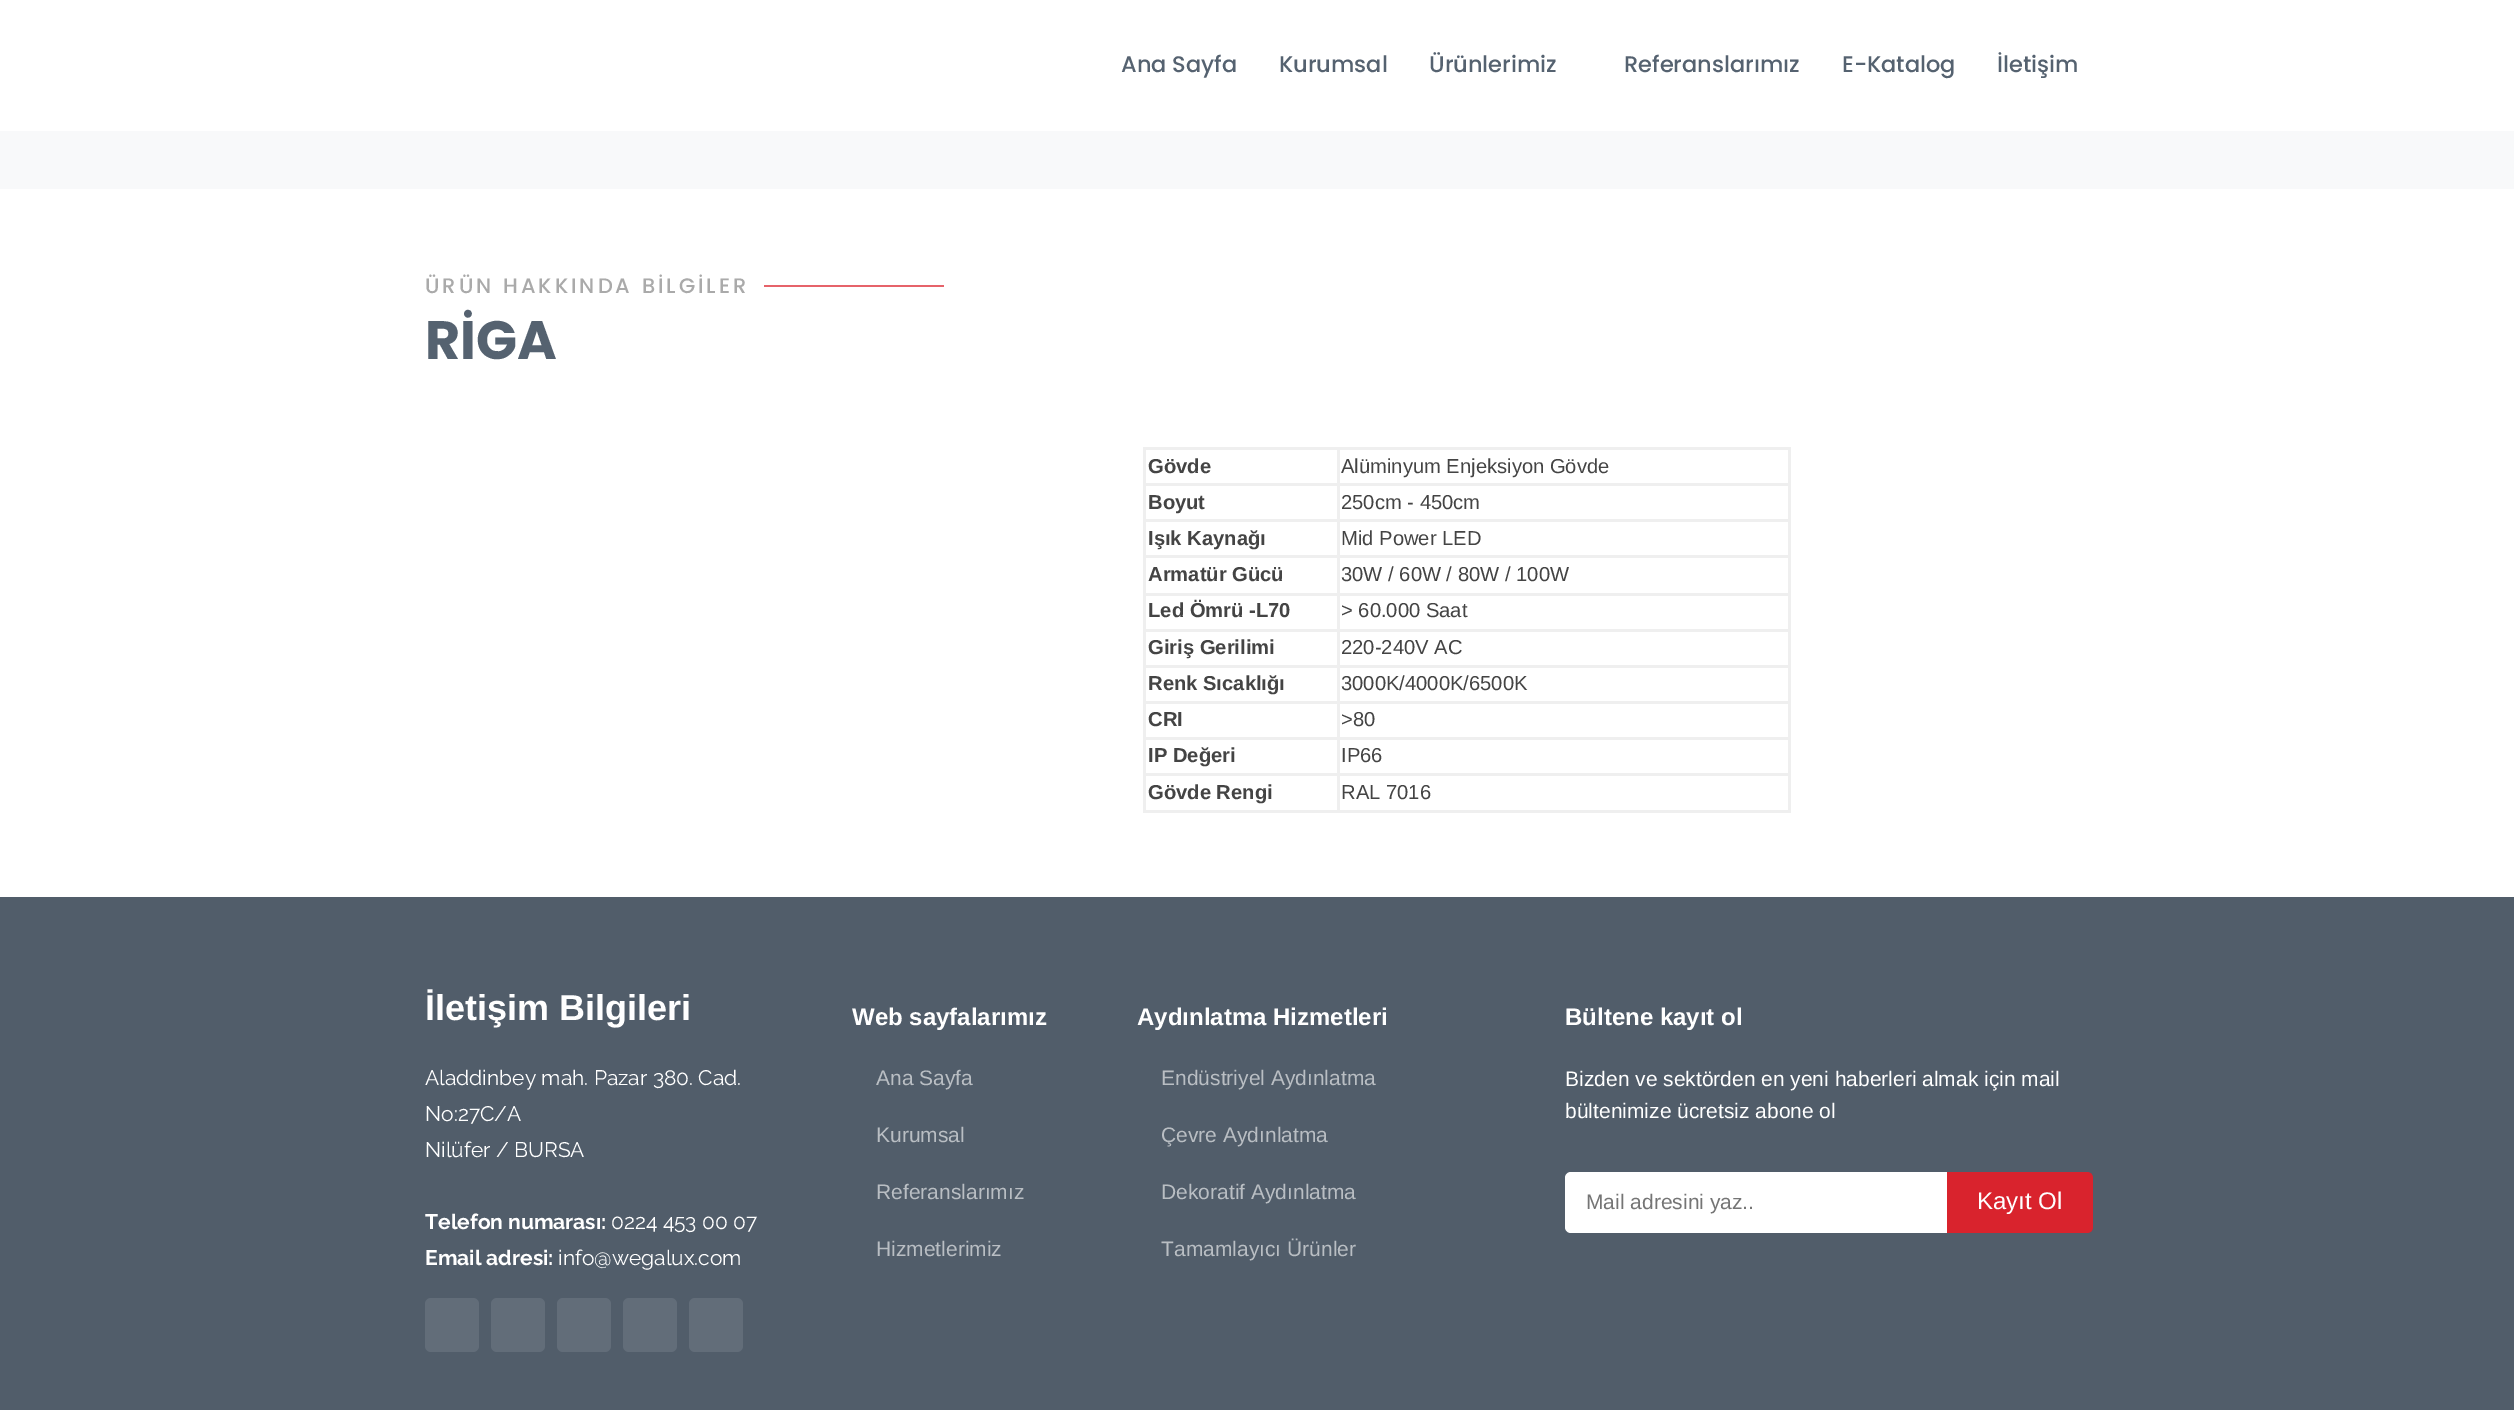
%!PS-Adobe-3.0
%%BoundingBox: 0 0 2514 1410
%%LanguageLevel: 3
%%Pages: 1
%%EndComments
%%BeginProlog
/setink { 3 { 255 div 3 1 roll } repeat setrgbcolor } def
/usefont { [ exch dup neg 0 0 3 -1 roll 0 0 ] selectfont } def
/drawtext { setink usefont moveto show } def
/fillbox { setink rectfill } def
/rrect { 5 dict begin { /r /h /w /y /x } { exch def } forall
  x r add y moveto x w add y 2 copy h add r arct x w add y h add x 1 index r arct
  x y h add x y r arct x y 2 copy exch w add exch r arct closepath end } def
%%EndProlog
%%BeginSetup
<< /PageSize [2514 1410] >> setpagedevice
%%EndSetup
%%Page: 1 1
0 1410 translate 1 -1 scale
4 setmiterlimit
0 0 2514 1410 255 255 255 fillbox
0 131 2514 58 248 249 250 fillbox
(Ana Sayfa) 1121 72 /Poppins-Medium 22.5 85 98 112 drawtext
(Kurumsal) 1279 72 /Poppins-Medium 22.5 85 98 112 drawtext
(Ürünlerimiz) 1429 72 /Poppins-Medium 22.5 85 98 112 drawtext
(Referanslarımız) 1624 72 /Poppins-Medium 22.5 85 98 112 drawtext
(E-Katalog) 1842 72 /Poppins-Medium 22.5 85 98 112 drawtext
(İletişim) 1997 72 /Poppins-Medium 22.5 85 98 112 drawtext
/Poppins-Medium 21 usefont
170 170 170 setink
425 293 moveto 3 0 (ÜRÜN HAKKINDA BİLGİLER) ashow
764 285 180 2 230 99 106 fillbox
(RİGA) 425 359 /Poppins-Bold 54 85 98 112 drawtext
1143 447 648 3 239 239 239 fillbox
1788 447 3 366 239 239 239 fillbox
1143 810 648 3 239 239 239 fillbox
1143 447 3 366 239 239 239 fillbox
(Gövde) 1148 473 /LiberationSans-Bold 20.2 68 68 68 drawtext
(Alüminyum Enjeksiyon Gövde) 1341 473 /LiberationSans-Regular 20.2 68 68 68 drawtext
1143 483 648 3 239 239 239 fillbox
(Boyut) 1148 509 /LiberationSans-Bold 20.2 68 68 68 drawtext
(250cm - 450cm) 1341 509 /LiberationSans-Regular 20.2 68 68 68 drawtext
1143 519 648 3 239 239 239 fillbox
(Işık Kaynağı) 1148 545 /LiberationSans-Bold 20.2 68 68 68 drawtext
(Mid Power LED) 1341 545 /LiberationSans-Regular 20.2 68 68 68 drawtext
1143 555 648 3 239 239 239 fillbox
(Armatür Gücü) 1148 581 /LiberationSans-Bold 20.2 68 68 68 drawtext
(30W / 60W / 80W / 100W) 1341 581 /LiberationSans-Regular 20.2 68 68 68 drawtext
1143 593 648 3 239 239 239 fillbox
(Led Ömrü -L70) 1148 617 /LiberationSans-Bold 20.2 68 68 68 drawtext
(> 60.000 Saat) 1341 617 /LiberationSans-Regular 20.2 68 68 68 drawtext
1143 629 648 3 239 239 239 fillbox
(Giriş Gerilimi) 1148 654 /LiberationSans-Bold 20.2 68 68 68 drawtext
(220-240V AC) 1341 654 /LiberationSans-Regular 20.2 68 68 68 drawtext
1143 665 648 3 239 239 239 fillbox
(Renk Sıcaklığı) 1148 690 /LiberationSans-Bold 20.2 68 68 68 drawtext
(3000K/4000K/6500K) 1341 690 /LiberationSans-Regular 20.2 68 68 68 drawtext
1143 701 648 3 239 239 239 fillbox
(CRI) 1148 726 /LiberationSans-Bold 20.2 68 68 68 drawtext
(>80) 1341 726 /LiberationSans-Regular 20.2 68 68 68 drawtext
1143 737 648 3 239 239 239 fillbox
(IP Değeri) 1148 762 /LiberationSans-Bold 20.2 68 68 68 drawtext
(IP66) 1341 762 /LiberationSans-Regular 20.2 68 68 68 drawtext
1143 773 648 3 239 239 239 fillbox
1337 447 3 366 239 239 239 fillbox
(Gövde Rengi) 1148 799 /LiberationSans-Bold 20.2 68 68 68 drawtext
(RAL 7016) 1341 799 /LiberationSans-Regular 20.2 68 68 68 drawtext
0 897 2514 513 81 93 106 fillbox
(İletişim Bilgileri) 425 1020 /LiberationSans-Bold 36 255 255 255 drawtext
(Aladdinbey mah. Pazar 380. Cad.) 425 1085 /Raleway-Regular 21 255 255 255 drawtext
(No:27C/A) 425 1121 /Raleway-Regular 21 255 255 255 drawtext
(Nilüfer / BURSA) 425 1157 /Raleway-Regular 21 255 255 255 drawtext
(Telefon numarası:) 425 1229 /Raleway-Bold 21 255 255 255 drawtext
(0224 453 00 07) 611 1229 /Raleway-Regular 21 255 255 255 drawtext
(Email adresi:) 425 1265 /Raleway-Bold 21 255 255 255 drawtext
(info@wegalux.com) 558 1265 /Raleway-Regular 21 255 255 255 drawtext
98 109 121 setink
425 1298 54 54 6 rrect fill
491 1298 54 54 6 rrect fill
557 1298 54 54 6 rrect fill
623 1298 54 54 6 rrect fill
689 1298 54 54 6 rrect fill
(Web sayfalarımız) 852 1025 /LiberationSans-Bold 24 255 255 255 drawtext
(Ana Sayfa) 876 1085 /LiberationSans-Regular 21 185 190 195 drawtext
(Kurumsal) 876 1142 /LiberationSans-Regular 21 185 190 195 drawtext
(Referanslarımız) 876 1199 /LiberationSans-Regular 21 185 190 195 drawtext
(Hizmetlerimiz) 876 1256 /LiberationSans-Regular 21 185 190 195 drawtext
(Aydınlatma Hizmetleri) 1137 1025 /LiberationSans-Bold 24 255 255 255 drawtext
(Endüstriyel Aydınlatma) 1161 1085 /LiberationSans-Regular 21 185 190 195 drawtext
(Çevre Aydınlatma) 1161 1142 /LiberationSans-Regular 21 185 190 195 drawtext
(Dekoratif Aydınlatma) 1161 1199 /LiberationSans-Regular 21 185 190 195 drawtext
(Tamamlayıcı Ürünler) 1161 1256 /LiberationSans-Regular 21 185 190 195 drawtext
(Bültene kayıt ol) 1565 1025 /LiberationSans-Bold 24 255 255 255 drawtext
(Bizden ve sektörden en yeni haberleri almak için mail) 1565 1086 /LiberationSans-Regular 21 255 255 255 drawtext
(bültenimize ücretsiz abone ol) 1565 1118 /LiberationSans-Regular 21 255 255 255 drawtext
1565 1172 525 61 6 rrect fill
(Mail adresini yaz..) 1586 1209 /LiberationSans-Regular 21 117 117 117 drawtext
217 35 45 setink
1947 1172 moveto 2087 1172 lineto 2090.5 1172 2093 1174.5 2093 1178 curveto 2093 1227 lineto 2093 1230.5 2090.5 1233 2087 1233 curveto 1947 1233 lineto closepath fill
(Kayıt Ol) 1977 1209 /LiberationSans-Regular 24 255 255 255 drawtext
showpage
%%EOF
